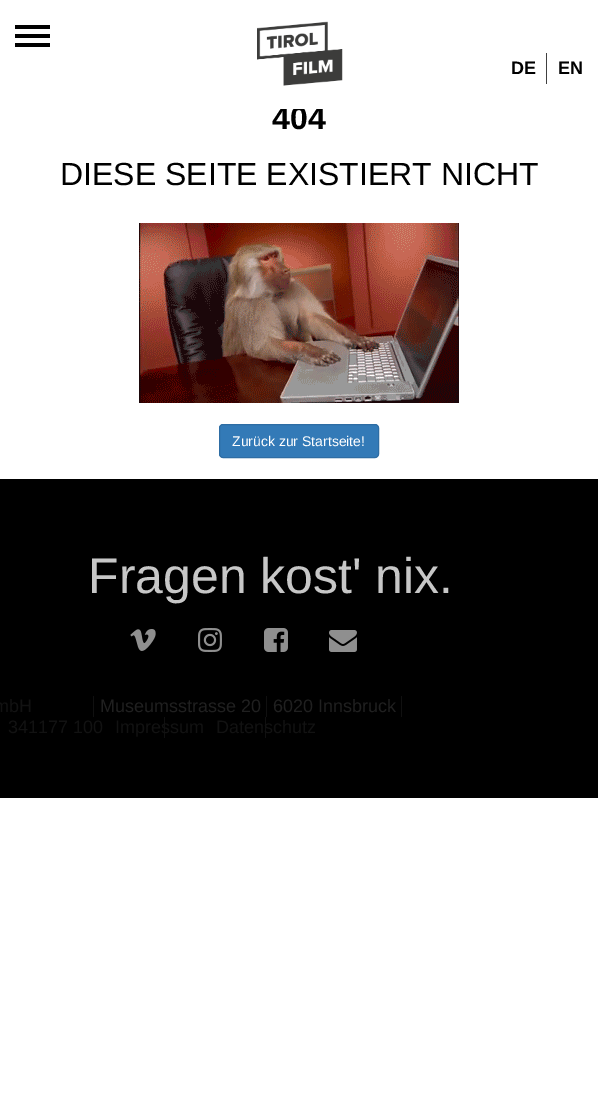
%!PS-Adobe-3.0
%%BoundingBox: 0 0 598 1109
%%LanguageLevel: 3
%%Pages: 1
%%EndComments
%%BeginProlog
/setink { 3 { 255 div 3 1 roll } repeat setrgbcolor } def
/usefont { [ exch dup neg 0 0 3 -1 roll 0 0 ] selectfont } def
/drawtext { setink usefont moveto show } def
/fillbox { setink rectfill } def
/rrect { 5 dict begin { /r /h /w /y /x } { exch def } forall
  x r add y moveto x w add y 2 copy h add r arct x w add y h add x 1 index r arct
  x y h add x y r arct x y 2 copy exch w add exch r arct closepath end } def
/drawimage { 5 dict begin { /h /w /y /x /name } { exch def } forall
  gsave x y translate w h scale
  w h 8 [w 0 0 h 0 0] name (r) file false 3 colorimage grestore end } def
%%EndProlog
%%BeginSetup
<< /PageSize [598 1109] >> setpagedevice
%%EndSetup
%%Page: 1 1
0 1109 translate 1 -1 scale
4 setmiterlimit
0 0 598 1109 255 255 255 fillbox
(404) 272 129 /LiberationSans-Bold 32 0 0 0 drawtext
280 106 43 3 255 255 255 fillbox
(assets/img1.rgb) 257 21 86 65 drawimage
546 53 1 31 64 64 64 fillbox
(DE) 511 74 /LiberationSans-Bold 18 0 0 0 drawtext
(EN) 558 74 /LiberationSans-Bold 18 0 0 0 drawtext
15 25 35 4 0 0 0 fillbox
15 34 35 4 0 0 0 fillbox
15 43 35 4 0 0 0 fillbox
(DIESE SEITE EXISTIERT NICHT) 60 185 /LiberationSans-Regular 32 0 0 0 drawtext
(assets/img2.rgb) 139 223 320 180 drawimage
51 122 183 setink
219.5 424.5 159 33 3.5 rrect gsave fill grestore
46 109 164 setink
stroke
(Zurück zur Startseite!) 232 446 /LiberationSans-Regular 14 255 255 255 drawtext
0 479 598 319 0 0 0 fillbox
(Fragen kost' nix.) 88 593 /LiberationSans-Regular 50 199 199 199 drawtext
(assets/img3.rgb) 130 629 26 22 drawimage
(assets/img4.rgb) 198 628 24 24 drawimage
(assets/img5.rgb) 264 628 24 24 drawimage
(assets/img6.rgb) 329 630 28 22 drawimage
93 696 1 21 16 16 16 fillbox
(mbH) -6 712 /LiberationSans-Regular 18 18 18 18 drawtext
266 696 1 21 16 16 16 fillbox
(Museumsstrasse 20) 100 712 /LiberationSans-Regular 18 32 32 32 drawtext
401 696 1 21 16 16 16 fillbox
(6020 Innsbruck) 273 712 /LiberationSans-Regular 18 32 32 32 drawtext
164 717 1 21 16 16 16 fillbox
(341177 100) 8 733 /LiberationSans-Regular 18 18 18 18 drawtext
265 717 1 21 16 16 16 fillbox
(Impressum) 115 733 /LiberationSans-Regular 18 18 18 18 drawtext
(Datenschutz) 216 733 /LiberationSans-Regular 18 18 18 18 drawtext
showpage
%%EOF
